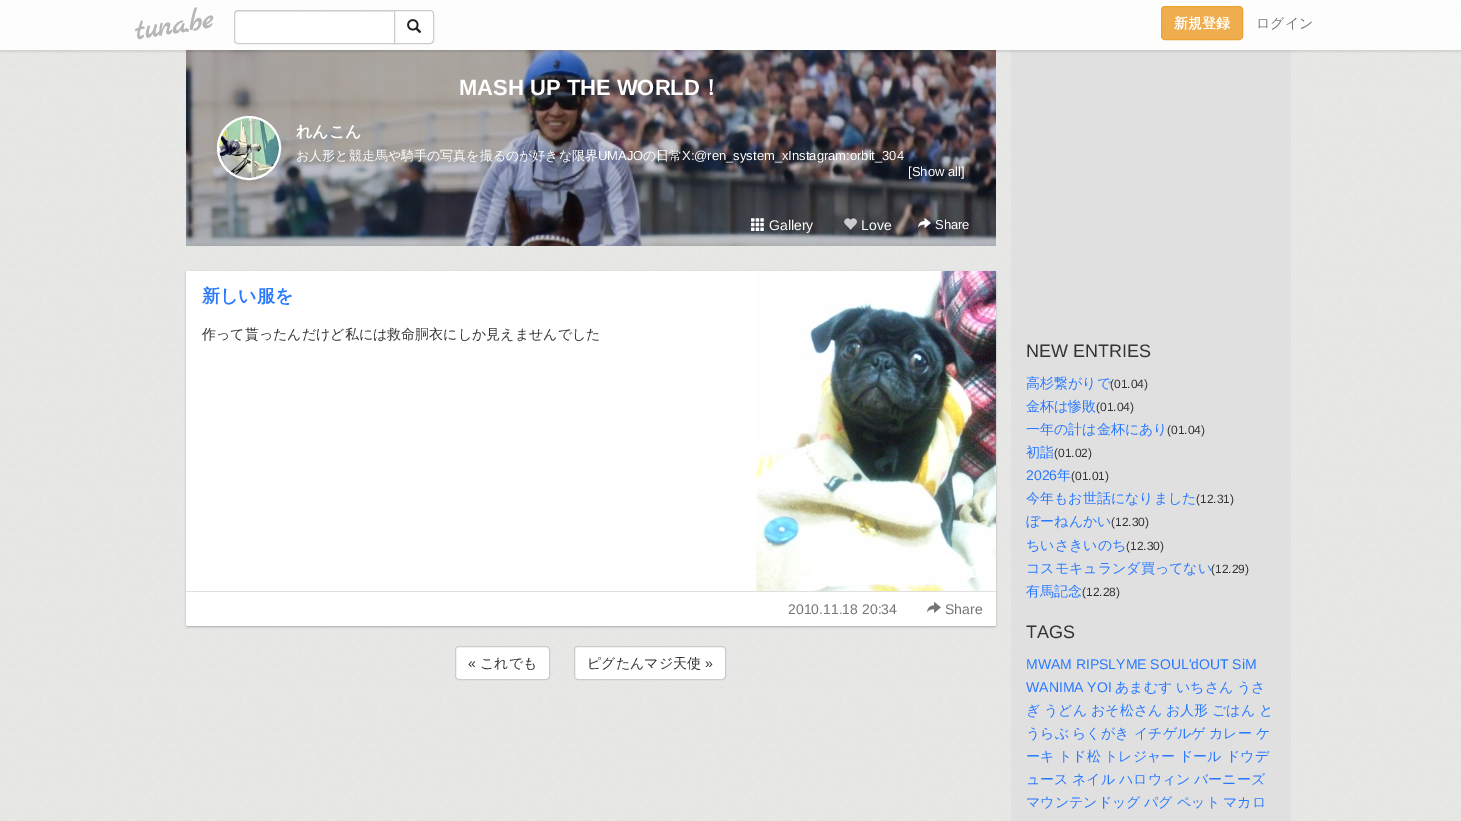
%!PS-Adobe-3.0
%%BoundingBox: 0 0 1461 821
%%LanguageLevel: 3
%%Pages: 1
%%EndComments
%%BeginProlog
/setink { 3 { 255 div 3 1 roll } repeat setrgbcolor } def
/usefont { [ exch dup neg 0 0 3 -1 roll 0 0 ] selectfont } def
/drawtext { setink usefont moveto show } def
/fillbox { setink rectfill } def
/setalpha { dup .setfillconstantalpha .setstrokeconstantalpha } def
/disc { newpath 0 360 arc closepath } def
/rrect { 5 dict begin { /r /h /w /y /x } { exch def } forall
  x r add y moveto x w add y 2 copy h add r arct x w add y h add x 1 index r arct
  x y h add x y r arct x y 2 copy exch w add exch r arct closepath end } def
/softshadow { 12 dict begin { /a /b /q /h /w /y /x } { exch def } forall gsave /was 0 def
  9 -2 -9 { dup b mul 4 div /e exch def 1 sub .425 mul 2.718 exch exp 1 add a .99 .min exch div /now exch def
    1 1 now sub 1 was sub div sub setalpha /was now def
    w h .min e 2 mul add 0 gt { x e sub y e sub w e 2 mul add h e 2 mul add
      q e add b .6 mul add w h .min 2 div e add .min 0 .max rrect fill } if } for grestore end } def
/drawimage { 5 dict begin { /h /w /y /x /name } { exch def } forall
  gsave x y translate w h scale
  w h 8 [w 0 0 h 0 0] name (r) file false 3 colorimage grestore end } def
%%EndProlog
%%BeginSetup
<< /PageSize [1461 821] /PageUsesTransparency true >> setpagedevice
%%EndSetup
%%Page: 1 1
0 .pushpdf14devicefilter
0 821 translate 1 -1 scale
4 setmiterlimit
0 0 1461 821 255 255 255 fillbox
(assets/img1.rgb) 0 0 1461 821 drawimage
(assets/img3.rgb) 186 50 810 196 drawimage
1011 50 280 771 224 224 224 fillbox
gsave
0 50 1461 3 rectclip
0 0 0 setink
0 2 1461 50 0 1 0.1 softshadow
grestore
0.9 setalpha
0 0 1461 50 255 255 255 fillbox
/MarckScript-Bold 30 usefont
1 setalpha
182 182 182 setink
gsave 136 40 translate -9 rotate 0 0 moveto (tuna.be) show grestore
255 255 255 setink
238 10 moveto 395 10 lineto 395 44 lineto 238 44 lineto 236 44 234 42 234 40 curveto 234 14 lineto 234 12 236 10 238 10 curveto closepath fill
236 236 236 setink
238 12 moveto 394 12 lineto 394 11 lineto 237 11 lineto 235 11 235 13 235 15 curveto 235 13 236 12 238 12 curveto closepath fill
204 204 204 setink
238 10.5 moveto 394.5 10.5 lineto 394.5 43.5 lineto 238 43.5 lineto 236 43.5 234.5 42 234.5 40 curveto 234.5 14 lineto 234.5 12 236 10.5 238 10.5 curveto closepath stroke
255 255 255 setink
394.5 10.5 moveto 430 10.5 lineto 432 10.5 433.5 12 433.5 14 curveto 433.5 40 lineto 433.5 42 432 43.5 430 43.5 curveto 394.5 43.5 lineto closepath gsave fill grestore
204 204 204 setink
stroke
(assets/img2.rgb) 407 19 15 14 drawimage
240 173 78 setink
1161.5 6.5 81 33 3.5 rrect gsave fill grestore
238 162 54 setink
stroke
(新規登録) 1174 28 /WenQuanYiZenHei-Bold 14 255 255 255 drawtext
(ログイン) 1256 28 /WenQuanYiZenHei-Medium 14 117 117 117 drawtext
(MASH UP THE WORLD) 459 95 /LiberationSans-Bold 22 255 255 255 drawtext
(！) 700 95 /WenQuanYiZenHei-Bold 22 255 255 255 drawtext
(assets/img4.rgb) 217 118 64 60 drawimage
2 setlinewidth
249 148 31 disc stroke
(れんこん) 296 137 /WenQuanYiZenHei-Bold 16 255 255 255 drawtext
(お人形と競走馬や騎手の写真を撮るのが好きな限界) 296 160 /WenQuanYiZenHei-Medium 13 255 255 255 drawtext
(UMAJO) 598 160 /LiberationSans-Regular 13 255 255 255 drawtext
(の日常) 643 160 /WenQuanYiZenHei-Medium 13 255 255 255 drawtext
(X:@ren_system_xInstagram:orbit_304) 682 160 /LiberationSans-Regular 13 255 255 255 drawtext
([Show all]) 908 176 /LiberationSans-Regular 13 255 255 255 drawtext
(assets/img5.rgb) 751 218 13 13 drawimage
(Gallery) 769 230 /LiberationSans-Regular 14 255 255 255 drawtext
(assets/img6.rgb) 844 218 13 12 drawimage
(Love) 861 230 /LiberationSans-Regular 14 255 255 255 drawtext
(assets/img7.rgb) 918 218 13 10 drawimage
(Share) 935 229 /LiberationSans-Regular 13 255 255 255 drawtext
170 170 170 setink
186 272 810 355 2 1 1 softshadow
255 255 255 setink
186 271 810 355 2 rrect fill
(新しい服を) 202 302 /WenQuanYiZenHei-Bold 18 41 121 255 drawtext
(assets/img8.rgb) 756 271 240 320 drawimage
(assets/img9.rgb) 970 566 10 13 drawimage
(作って貰ったんだけど私には救命胴衣にしか見えませんでした) 202 339 /WenQuanYiZenHei-Medium 14 51 51 51 drawtext
186 591 810 1 224 224 224 fillbox
(2010.11.18 20:34) 788 614 /LiberationSans-Regular 14 117 117 117 drawtext
(assets/img10.rgb) 927 602 14 11 drawimage
(Share) 945 614 /LiberationSans-Regular 14 117 117 117 drawtext
255 255 255 setink
455.5 646.5 94 33 3.5 rrect gsave fill grestore
204 204 204 setink
1 setlinewidth
stroke
(«) 468 668 /LiberationSans-Regular 14 51 51 51 drawtext
(これでも) 480 668 /WenQuanYiZenHei-Medium 14 51 51 51 drawtext
255 255 255 setink
574.5 646.5 151 33 3.5 rrect gsave fill grestore
204 204 204 setink
stroke
(ピグたんマジ天使) 587 668 /WenQuanYiZenHei-Medium 14 51 51 51 drawtext
(») 705 668 /LiberationSans-Regular 14 51 51 51 drawtext
(NEW ENTRIES) 1026 357 /LiberationSans-Regular 18 51 51 51 drawtext
(高杉繋がりで) 1026 388 /WenQuanYiZenHei-Medium 14 41 121 255 drawtext
(\(01.04\)) 1110 388 /LiberationSans-Regular 12 51 51 51 drawtext
(金杯は惨敗) 1026 411 /WenQuanYiZenHei-Medium 14 41 121 255 drawtext
(\(01.04\)) 1096 411 /LiberationSans-Regular 12 51 51 51 drawtext
(一年の計は金杯にあり) 1026 434 /WenQuanYiZenHei-Medium 14 41 121 255 drawtext
(\(01.04\)) 1167 434 /LiberationSans-Regular 12 51 51 51 drawtext
(初詣) 1026 457 /WenQuanYiZenHei-Medium 14 41 121 255 drawtext
(\(01.02\)) 1054 457 /LiberationSans-Regular 12 51 51 51 drawtext
(2026) 1026 480 /LiberationSans-Regular 14 41 121 255 drawtext
(年) 1057 480 /WenQuanYiZenHei-Medium 14 41 121 255 drawtext
(\(01.01\)) 1071 480 /LiberationSans-Regular 12 51 51 51 drawtext
(今年もお世話になりました) 1026 503 /WenQuanYiZenHei-Medium 14 41 121 255 drawtext
(\(12.31\)) 1196 503 /LiberationSans-Regular 12 51 51 51 drawtext
(ぼーねんかい) 1026 526 /WenQuanYiZenHei-Medium 14 41 121 255 drawtext
(\(12.30\)) 1111 526 /LiberationSans-Regular 12 51 51 51 drawtext
(ちいさきいのち) 1026 550 /WenQuanYiZenHei-Medium 14 41 121 255 drawtext
(\(12.30\)) 1126 550 /LiberationSans-Regular 12 51 51 51 drawtext
(コスモキュランダ買ってない) 1026 573 /WenQuanYiZenHei-Medium 14 41 121 255 drawtext
(\(12.29\)) 1211 573 /LiberationSans-Regular 12 51 51 51 drawtext
(有馬記念) 1026 596 /WenQuanYiZenHei-Medium 14 41 121 255 drawtext
(\(12.28\)) 1082 596 /LiberationSans-Regular 12 51 51 51 drawtext
(TAGS) 1026 638 /LiberationSans-Regular 18 51 51 51 drawtext
(MWAM RIPSLYME SOUL'dOUT SiM) 1026 669 /LiberationSans-Regular 14 41 121 255 drawtext
(WANIMA YOI) 1026 692 /LiberationSans-Regular 14 41 121 255 drawtext
(あまむす) 1115 692 /WenQuanYiZenHei-Medium 14 41 121 255 drawtext
(いちさん) 1176 692 /WenQuanYiZenHei-Medium 14 41 121 255 drawtext
(うさ) 1237 692 /WenQuanYiZenHei-Medium 14 41 121 255 drawtext
(ぎ) 1026 715 /WenQuanYiZenHei-Medium 14 41 121 255 drawtext
(うどん) 1044 715 /WenQuanYiZenHei-Medium 14 41 121 255 drawtext
(おそ松さん) 1091 715 /WenQuanYiZenHei-Medium 14 41 121 255 drawtext
(お人形) 1166 715 /WenQuanYiZenHei-Medium 14 41 121 255 drawtext
(ごはん) 1212 715 /WenQuanYiZenHei-Medium 14 41 121 255 drawtext
(と) 1259 715 /WenQuanYiZenHei-Medium 14 41 121 255 drawtext
(うらぶ) 1026 738 /WenQuanYiZenHei-Medium 14 41 121 255 drawtext
(らくがき) 1072 738 /WenQuanYiZenHei-Medium 14 41 121 255 drawtext
(イチゲルゲ) 1134 738 /WenQuanYiZenHei-Medium 14 41 121 255 drawtext
(カレー) 1209 738 /WenQuanYiZenHei-Medium 14 41 121 255 drawtext
(ケ) 1256 738 /WenQuanYiZenHei-Medium 14 41 121 255 drawtext
(ーキ) 1026 761 /WenQuanYiZenHei-Medium 14 41 121 255 drawtext
(トド松) 1058 761 /WenQuanYiZenHei-Medium 14 41 121 255 drawtext
(トレジャー) 1104 761 /WenQuanYiZenHei-Medium 14 41 121 255 drawtext
(ドール) 1179 761 /WenQuanYiZenHei-Medium 14 41 121 255 drawtext
(ドウデ) 1226 761 /WenQuanYiZenHei-Medium 14 41 121 255 drawtext
(ュース) 1026 784 /WenQuanYiZenHei-Medium 14 41 121 255 drawtext
(ネイル) 1072 784 /WenQuanYiZenHei-Medium 14 41 121 255 drawtext
(ハロウィン) 1119 784 /WenQuanYiZenHei-Medium 14 41 121 255 drawtext
(バーニーズ) 1194 784 /WenQuanYiZenHei-Medium 14 41 121 255 drawtext
(マウンテンドッグ) 1026 807 /WenQuanYiZenHei-Medium 14 41 121 255 drawtext
(パグ) 1144 807 /WenQuanYiZenHei-Medium 14 41 121 255 drawtext
(ペット) 1177 807 /WenQuanYiZenHei-Medium 14 41 121 255 drawtext
(マカロ) 1223 807 /WenQuanYiZenHei-Medium 14 41 121 255 drawtext
.poppdf14devicefilter showpage
%%EOF
